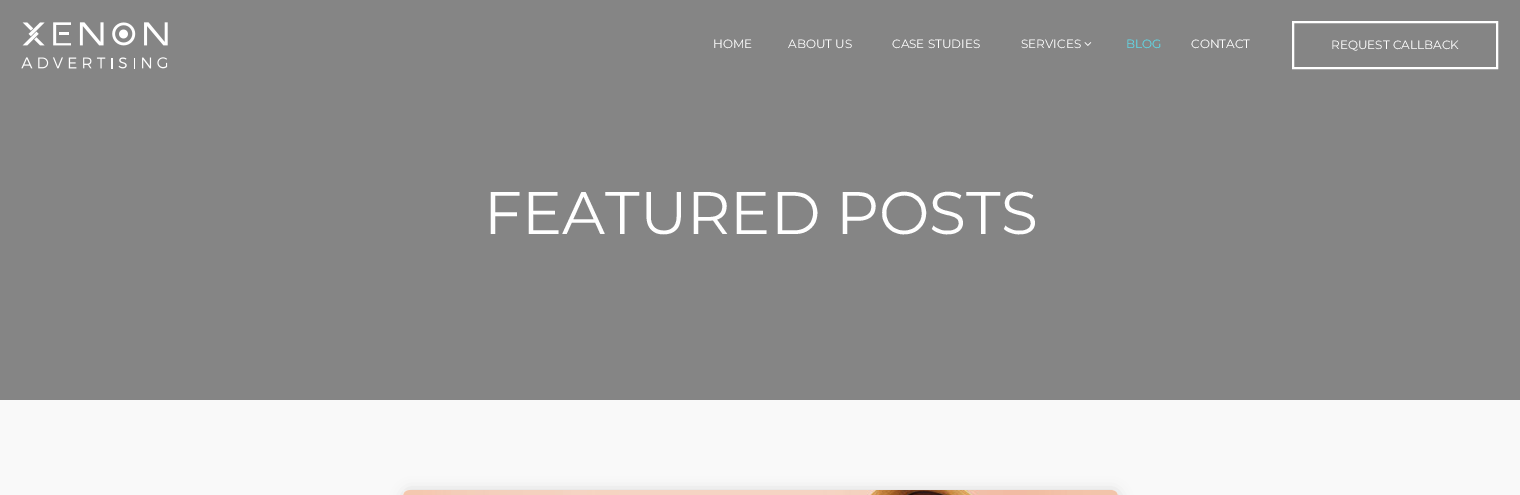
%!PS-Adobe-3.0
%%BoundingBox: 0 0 1520 495
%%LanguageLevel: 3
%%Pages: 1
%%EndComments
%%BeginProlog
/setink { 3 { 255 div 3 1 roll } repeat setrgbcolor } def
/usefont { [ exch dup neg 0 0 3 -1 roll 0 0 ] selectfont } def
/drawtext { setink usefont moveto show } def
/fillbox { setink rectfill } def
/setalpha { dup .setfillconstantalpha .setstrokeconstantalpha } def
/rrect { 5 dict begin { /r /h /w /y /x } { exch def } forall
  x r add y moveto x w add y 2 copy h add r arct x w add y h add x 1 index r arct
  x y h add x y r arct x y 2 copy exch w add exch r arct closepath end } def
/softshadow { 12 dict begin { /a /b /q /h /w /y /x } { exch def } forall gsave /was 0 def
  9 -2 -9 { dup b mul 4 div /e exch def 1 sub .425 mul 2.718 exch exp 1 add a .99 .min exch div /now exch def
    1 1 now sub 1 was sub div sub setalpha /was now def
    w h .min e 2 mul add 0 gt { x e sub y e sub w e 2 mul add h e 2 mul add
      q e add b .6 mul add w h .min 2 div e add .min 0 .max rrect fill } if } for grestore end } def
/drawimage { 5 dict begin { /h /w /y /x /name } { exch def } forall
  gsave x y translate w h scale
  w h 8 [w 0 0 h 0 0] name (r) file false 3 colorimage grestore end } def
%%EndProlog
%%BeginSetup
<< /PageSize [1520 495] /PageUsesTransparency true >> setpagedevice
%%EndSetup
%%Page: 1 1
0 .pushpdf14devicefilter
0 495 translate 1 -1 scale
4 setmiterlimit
0 0 1520 495 249 249 249 fillbox
0 0 1520 400 133 133 133 fillbox
(assets/img1.rgb) 21 22 147 47 drawimage
(HOME) 713 48 /Montserrat-Regular 12 255 255 255 drawtext
(ABOUT US) 788 48 /Montserrat-Regular 12 255 255 255 drawtext
(CASE STUDIES) 892 48 /Montserrat-Regular 12 255 255 255 drawtext
(SERVICES) 1021 48 /Montserrat-Regular 12 255 255 255 drawtext
(assets/img2.rgb) 1084 42 8 4 drawimage
(BLOG) 1126 48 /Montserrat-Regular 12 95 218 232 drawtext
(CONTACT) 1191 48 /Montserrat-Regular 12 255 255 255 drawtext
2 setlinewidth
1293 22 204 46 rectstroke
(REQUEST CALLBACK) 1331 49 /Montserrat-Regular 12 255 255 255 drawtext
(FEATURED POSTS) 484 234 /Montserrat-Regular 60 255 255 255 drawtext
127 127 127 setink
404 491 715 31 6 7 0.3 softshadow
(assets/img3.rgb) 403 490 715 5 drawimage
.poppdf14devicefilter showpage
%%EOF
